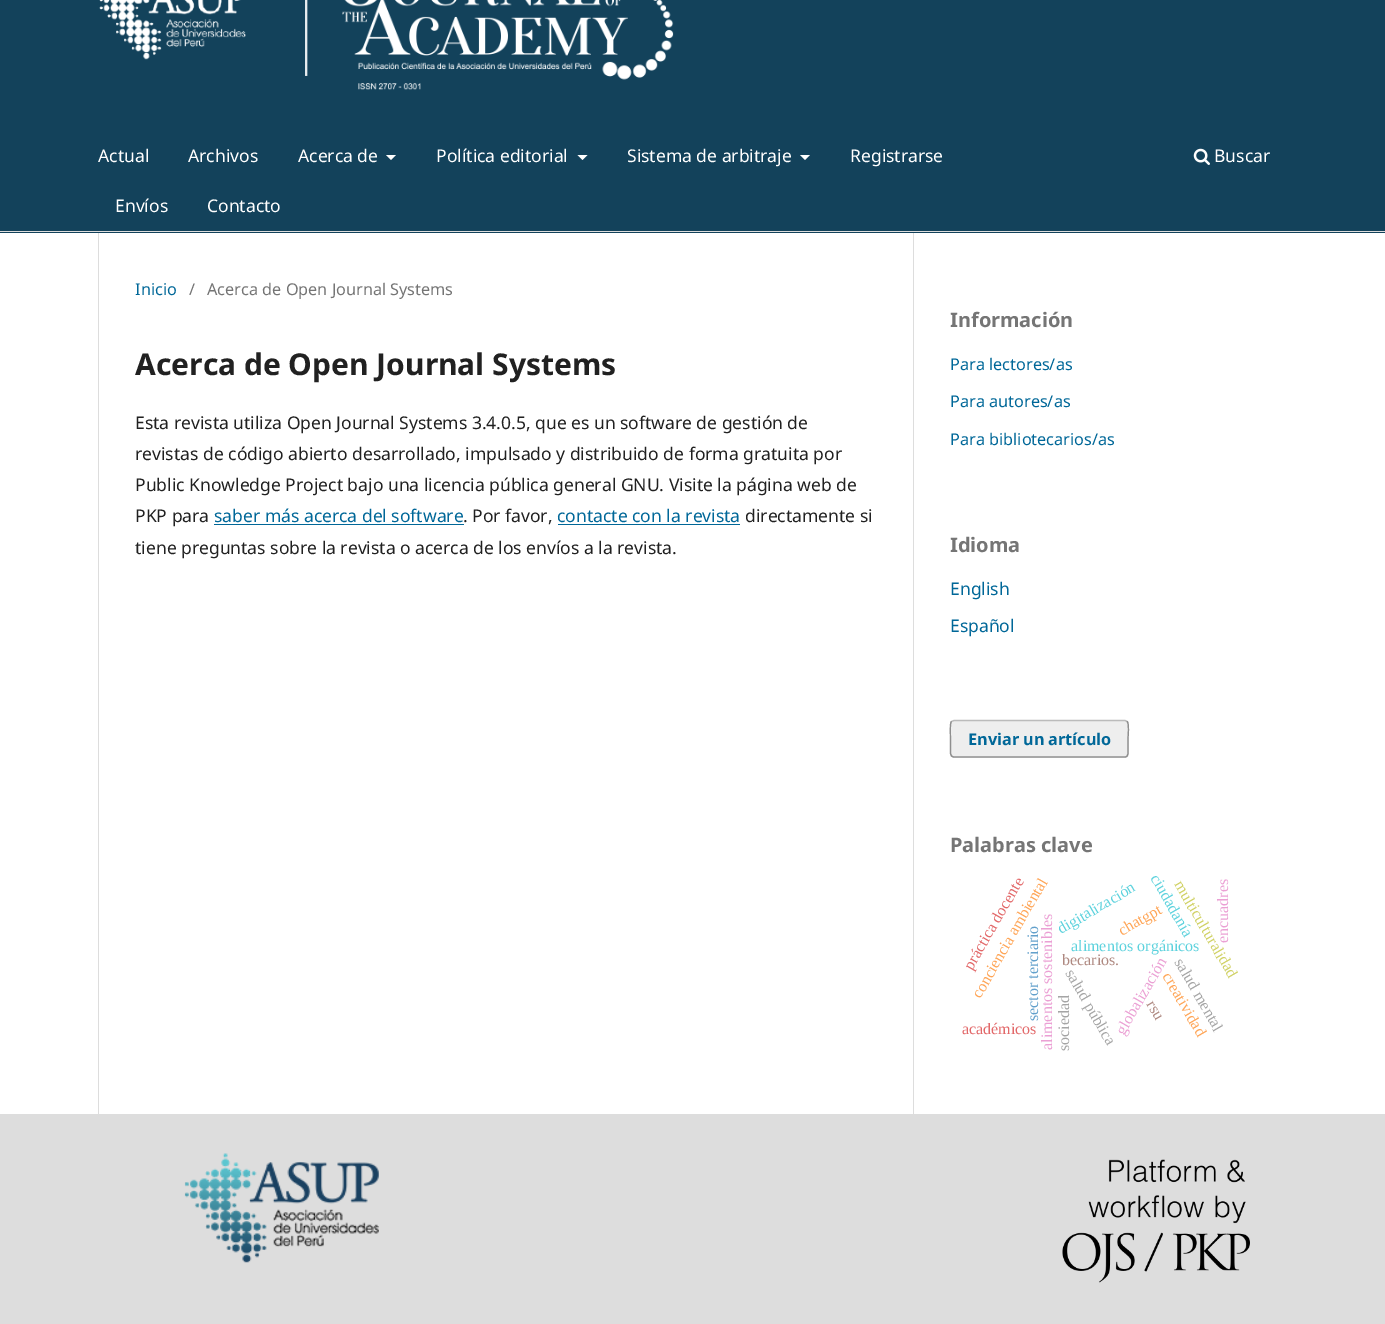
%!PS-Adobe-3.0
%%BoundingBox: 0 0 1385 1324
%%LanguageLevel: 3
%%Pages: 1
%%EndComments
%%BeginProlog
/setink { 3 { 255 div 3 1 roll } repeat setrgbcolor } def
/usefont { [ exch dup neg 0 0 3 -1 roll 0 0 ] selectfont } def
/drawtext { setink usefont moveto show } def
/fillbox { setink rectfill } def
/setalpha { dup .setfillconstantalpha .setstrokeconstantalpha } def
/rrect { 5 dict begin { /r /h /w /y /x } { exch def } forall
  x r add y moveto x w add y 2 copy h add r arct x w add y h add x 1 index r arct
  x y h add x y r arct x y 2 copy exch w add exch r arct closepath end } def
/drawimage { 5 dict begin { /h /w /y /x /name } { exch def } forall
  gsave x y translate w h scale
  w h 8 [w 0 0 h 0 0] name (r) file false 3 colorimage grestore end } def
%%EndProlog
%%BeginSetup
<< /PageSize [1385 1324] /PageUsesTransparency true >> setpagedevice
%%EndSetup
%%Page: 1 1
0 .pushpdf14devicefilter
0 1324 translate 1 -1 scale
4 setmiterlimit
0 0 1385 1324 255 255 255 fillbox
0 0 1385 233 19 66 91 fillbox
0 231 1385 1 221 221 221 fillbox
(assets/img1.rgb) 99 0 575 90 drawimage
(Actual) 98 162 /NotoSans-Regular 17.5 255 255 255 drawtext
(Archivos) 188 162 /NotoSans-Regular 17.5 255 255 255 drawtext
(Acerca de) 298 162 /NotoSans-Regular 17.5 255 255 255 drawtext
386 155 moveto 396 155 lineto 391 160 lineto closepath fill
(Política editorial) 436 162 /NotoSans-Regular 17.5 255 255 255 drawtext
577.5 155 moveto 587.5 155 lineto 582.5 160 lineto closepath fill
(Sistema de arbitraje) 627 162 /NotoSans-Regular 17.5 255 255 255 drawtext
800 155 moveto 810 155 lineto 805 160 lineto closepath fill
(Registrarse) 850 162 /NotoSans-Regular 17.5 255 255 255 drawtext
(Envíos) 115 212 /NotoSans-Regular 17.5 255 255 255 drawtext
(Contacto) 207 212 /NotoSans-Regular 17.5 255 255 255 drawtext
(assets/img2.rgb) 1193 148 17 17 drawimage
(Buscar) 1214 162 /NotoSans-Regular 17.5 255 255 255 drawtext
98 233 1 881 221 221 221 fillbox
(Inicio) 135 295 /NotoSans-Regular 16.25 0 103 152 drawtext
(/) 189 295 /NotoSans-Regular 16.25 117 117 117 drawtext
(Acerca de Open Journal Systems) 207 295 /NotoSans-Regular 16.25 117 117 117 drawtext
(Acerca de Open Journal Systems) 135 375 /NotoSans-Bold 30 33 33 33 drawtext
(Esta revista utiliza Open Journal Systems 3.4.0.5, que es un software de gestión de) 135 429 /NotoSans-Regular 17.5 33 33 33 drawtext
(revistas de código abierto desarrollado, impulsado y distribuido de forma gratuita por) 135 460 /NotoSans-Regular 17.5 33 33 33 drawtext
(Public Knowledge Project bajo una licencia pública general GNU. Visite la página web de) 135 491 /NotoSans-Regular 17.5 33 33 33 drawtext
(PKP para) 135 522 /NotoSans-Regular 17.5 33 33 33 drawtext
(saber más acerca del software) 214 522 /NotoSans-Regular 17.5 0 103 152 drawtext
214 524 250 1 0 103 152 fillbox
(. Por favor,) 463 522 /NotoSans-Regular 17.5 33 33 33 drawtext
(contacte con la revista) 557 522 /NotoSans-Regular 17.5 0 103 152 drawtext
558 524 182 1 0 103 152 fillbox
(directamente si) 745 522 /NotoSans-Regular 17.5 33 33 33 drawtext
(tiene preguntas sobre la revista o acerca de los envíos a la revista.) 135 554 /NotoSans-Regular 17.5 33 33 33 drawtext
913 233 1 881 221 221 221 fillbox
(Información) 950 327 /NotoSans-Bold 20 117 117 117 drawtext
(Para lectores/as) 950 370 /NotoSans-Regular 16.25 0 103 152 drawtext
(Para autores/as) 950 407 /NotoSans-Regular 16.25 0 103 152 drawtext
(Para bibliotecarios/as) 950 445 /NotoSans-Regular 16.25 0 103 152 drawtext
(Idioma) 950 552 /NotoSans-Bold 20 117 117 117 drawtext
(English) 950 595 /NotoSans-Regular 17.5 0 103 152 drawtext
(Español) 950 632 /NotoSans-Regular 17.5 0 103 152 drawtext
238 238 238 setink
950 720 179 38 4 rrect fill
187 187 187 setink
1.2 setlinewidth
951.5 721.5 moveto 954 720.5 lineto 1125 720.5 lineto 1127 721.5 lineto stroke
0.4 setalpha
0 0 0 setink
1127 721.5 moveto 1129.5 723.5 1128 735.5 1128 739 curveto 1128 749 lineto 1128 751 1129 757 1125 757 curveto 954 757 lineto 949.5 757 950.5 751 950.5 749 curveto 950.5 739 lineto 950.5 735.5 949.5 723.5 951.5 721.5 curveto stroke
1 setalpha
(Enviar un artículo) 968 745 /NotoSans-Bold 16.25 0 103 152 drawtext
(Palabras clave) 950 852 /NotoSans-Bold 20 117 117 117 drawtext
/LiberationSerif-Regular 16 usefont
235 160 212 setink
gsave 1052 1050 translate -90 rotate 0 0 moveto (alimentos sostenibles) show grestore
255 165 86 setink
gsave 980 999 translate -60 rotate 0 0 moveto (conciencia ambiental) show grestore
(alimentos orgánicos) 1071 951 /LiberationSerif-Regular 16 93 210 221 drawtext
208 209 100 setink
gsave 1174 884 translate 60 rotate 0 0 moveto (multiculturalidad) show grestore
93 210 221 setink
gsave 1150 878 translate 60 rotate 0 0 moveto (ciudadanía) show grestore
226 104 105 setink
gsave 972 971 translate -60 rotate 0 0 moveto (práctica docente) show grestore
235 160 212 setink
gsave 1228 943 translate -90 rotate 0 0 moveto (encuadres) show grestore
98 160 203 setink
gsave 1038 1021 translate -90 rotate 0 0 moveto (sector terciario) show grestore
93 210 221 setink
gsave 1061 934 translate -30 rotate 0 0 moveto (digitalización) show grestore
255 165 86 setink
gsave 1122 936 translate -30 rotate 0 0 moveto (chatgpt) show grestore
235 160 212 setink
gsave 1124 1036 translate -60 rotate 0 0 moveto (globalización) show grestore
(becarios.) 1062 965 /LiberationSerif-Regular 16 175 137 129 drawtext
165 165 165 setink
gsave 1174 962 translate 60 rotate 0 0 moveto (salud mental) show grestore
gsave 1065 973 translate 60 rotate 0 0 moveto (salud pública) show grestore
gsave 1069 1051 translate -90 rotate 0 0 moveto (sociedad) show grestore
175 137 129 setink
gsave 1146 1004 translate 60 rotate 0 0 moveto (rsu) show grestore
255 165 86 setink
gsave 1162 976 translate 60 rotate 0 0 moveto (creatividad) show grestore
(académicos) 962 1034 /LiberationSerif-Regular 16 226 104 105 drawtext
0 1114 1385 210 221 221 221 fillbox
(assets/img3.rgb) 184 1153 195 110 drawimage
(assets/img4.rgb) 1062 1159 188 124 drawimage
.poppdf14devicefilter showpage
%%EOF
